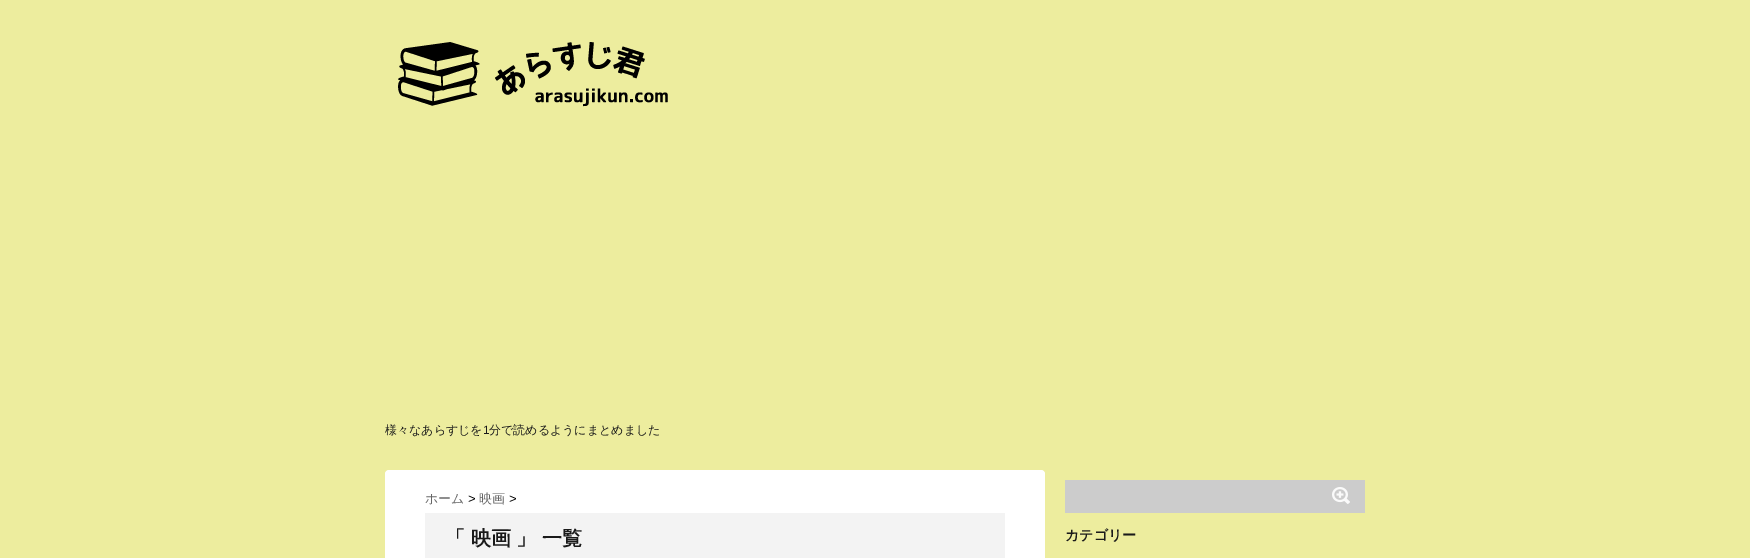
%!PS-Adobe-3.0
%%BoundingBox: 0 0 1750 558
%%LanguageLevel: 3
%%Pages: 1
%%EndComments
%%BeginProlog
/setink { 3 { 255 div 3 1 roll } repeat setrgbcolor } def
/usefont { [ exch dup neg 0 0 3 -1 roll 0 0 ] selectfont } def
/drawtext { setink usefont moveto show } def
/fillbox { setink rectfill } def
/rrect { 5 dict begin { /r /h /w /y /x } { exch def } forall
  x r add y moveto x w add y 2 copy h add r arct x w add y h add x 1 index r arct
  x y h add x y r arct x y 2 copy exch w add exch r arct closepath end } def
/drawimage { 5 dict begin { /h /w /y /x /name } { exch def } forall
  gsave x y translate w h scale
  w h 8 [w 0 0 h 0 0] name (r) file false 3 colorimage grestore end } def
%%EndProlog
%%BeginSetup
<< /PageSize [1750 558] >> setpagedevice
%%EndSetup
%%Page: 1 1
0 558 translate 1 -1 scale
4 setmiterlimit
0 0 1750 558 237 237 158 fillbox
(assets/img1.rgb) 398 42 270 65 drawimage
(様々なあらすじを) 385 434 /WenQuanYiZenHei-Medium 12 26 26 26 drawtext
(1) 483 434 /LiberationSans-Regular 12 26 26 26 drawtext
(分で読めるようにまとめました) 489 434 /WenQuanYiZenHei-Medium 12 26 26 26 drawtext
255 255 255 setink
385 470 660 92 4 rrect fill
(ホーム) 425 503 /WenQuanYiZenHei-Medium 13 102 102 102 drawtext
(>) 468 503 /LiberationSans-Regular 13 0 0 0 drawtext
(映画) 479 503 /WenQuanYiZenHei-Medium 13 102 102 102 drawtext
(>) 509 503 /LiberationSans-Regular 13 0 0 0 drawtext
425 513 580 45 243 243 243 fillbox
(「) 445 545 /WenQuanYiZenHei-Bold 20 26 26 26 drawtext
(映画) 471 545 /WenQuanYiZenHei-Bold 20 26 26 26 drawtext
(」 一覧) 516 545 /WenQuanYiZenHei-Bold 20 26 26 26 drawtext
1065 480 300 33 204 204 204 fillbox
(assets/img2.rgb) 1332 487 18 17 drawimage
(カテゴリー) 1065 540 /WenQuanYiZenHei-Bold 14 26 26 26 drawtext
showpage
%%EOF
